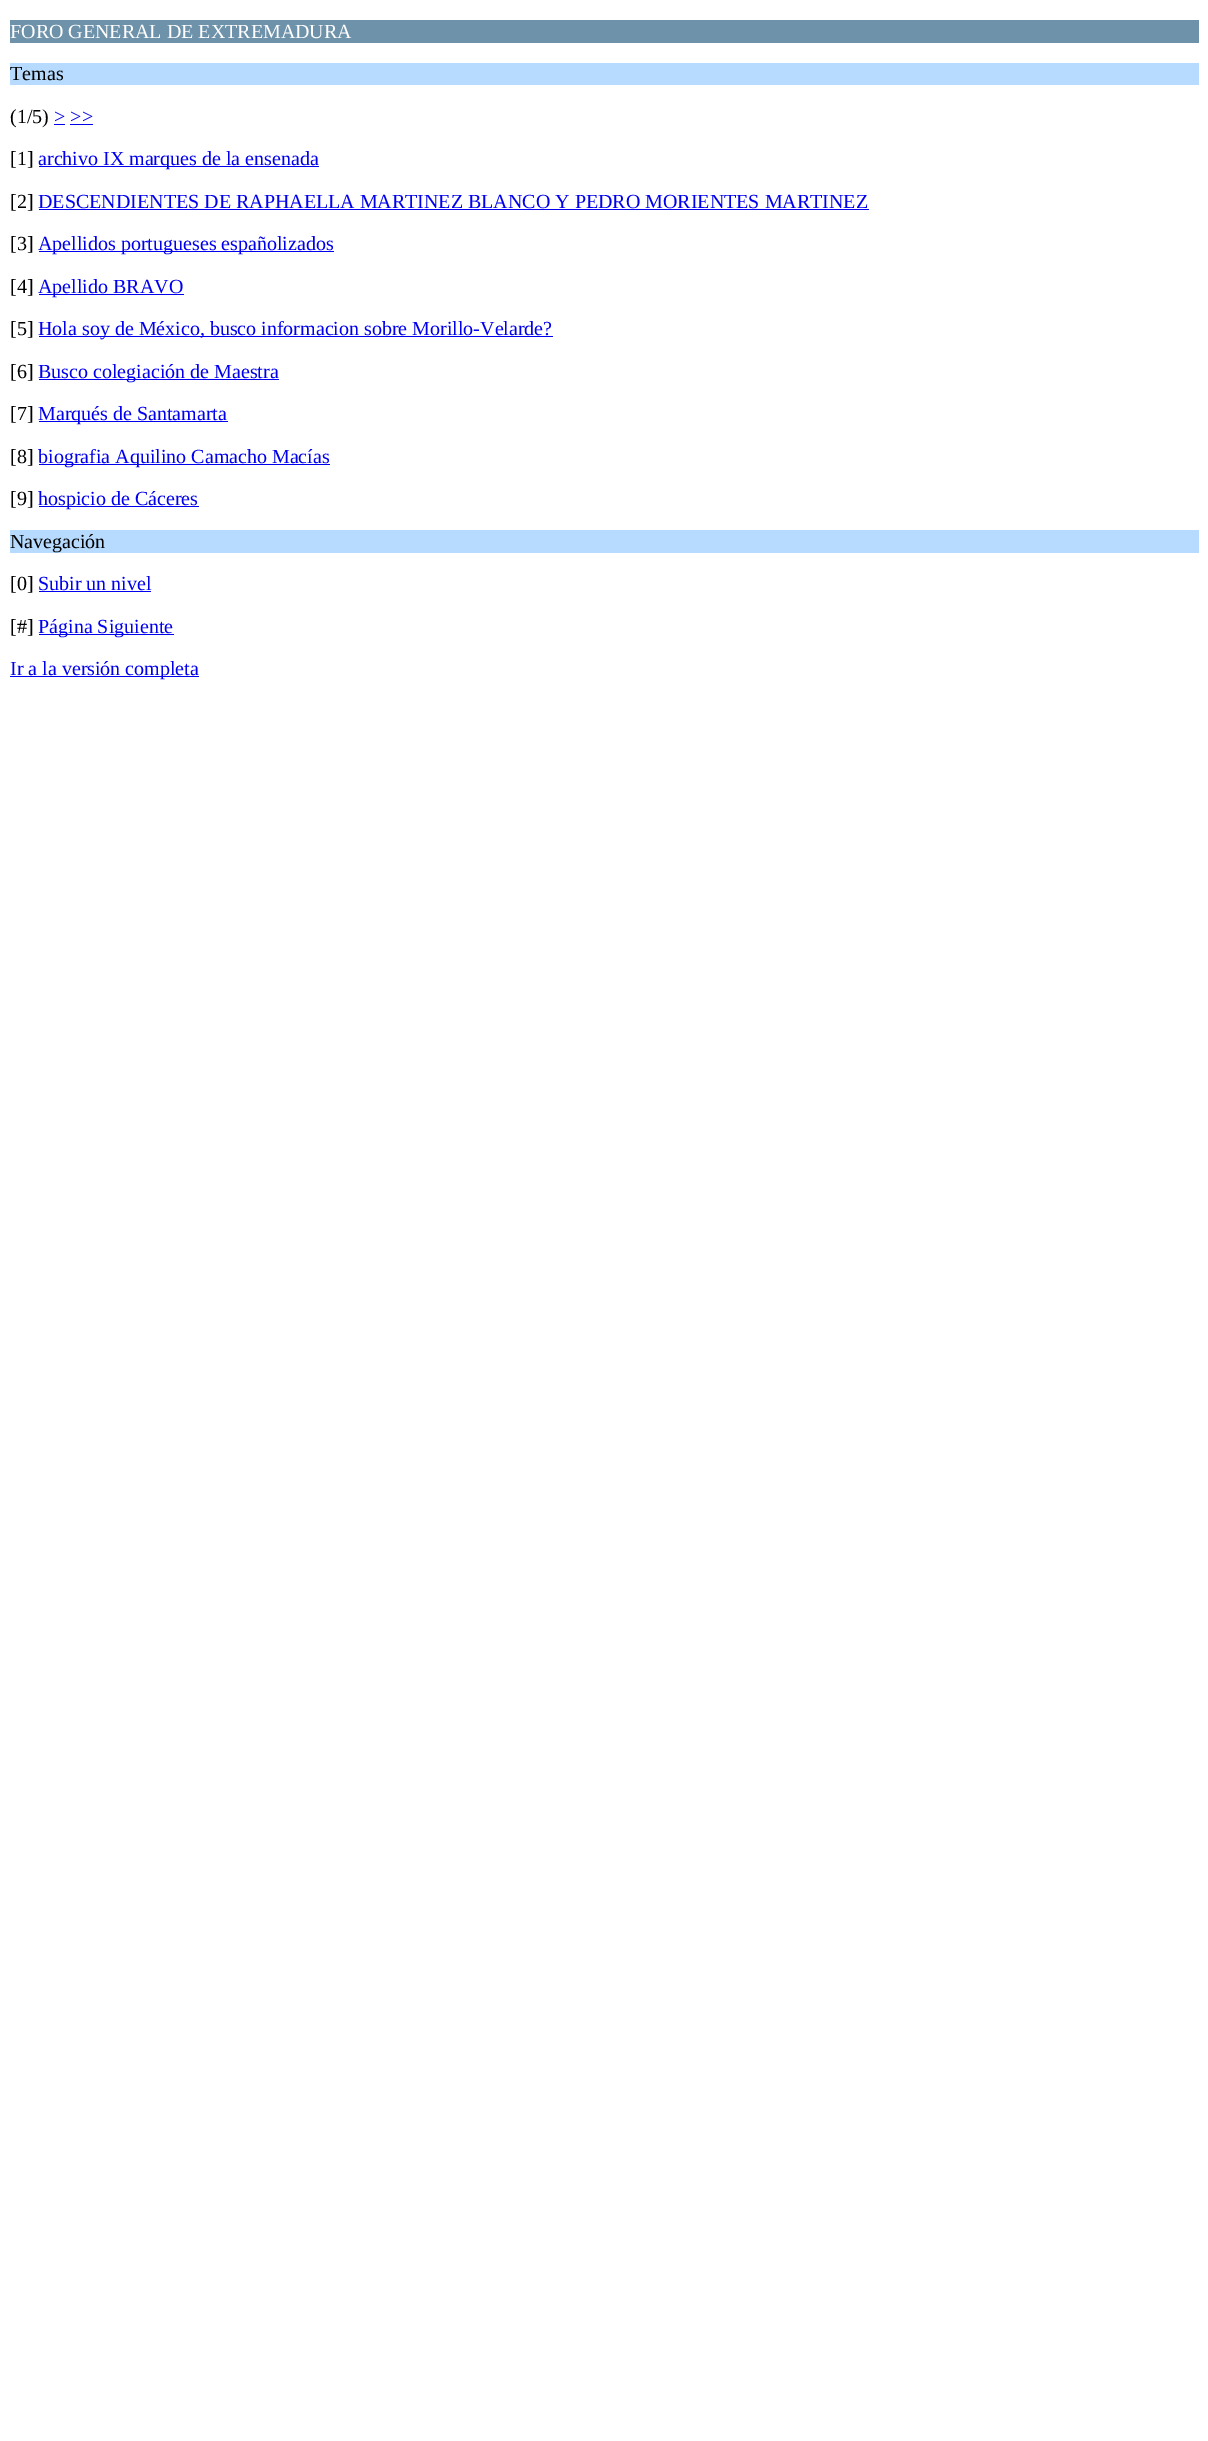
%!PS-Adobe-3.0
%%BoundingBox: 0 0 1208 2441
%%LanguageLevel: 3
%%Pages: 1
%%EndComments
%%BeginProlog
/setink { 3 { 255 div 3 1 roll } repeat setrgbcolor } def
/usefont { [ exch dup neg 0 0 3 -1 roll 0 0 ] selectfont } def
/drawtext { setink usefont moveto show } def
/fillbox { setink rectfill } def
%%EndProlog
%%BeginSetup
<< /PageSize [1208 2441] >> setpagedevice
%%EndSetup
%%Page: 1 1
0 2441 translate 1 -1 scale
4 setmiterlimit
0 0 1208 2441 255 255 255 fillbox
10 20 1189 23 109 146 170 fillbox
(FORO GENERAL DE EXTREMADURA) 10 38 /LiberationSerif-Regular 20 255 255 255 drawtext
10 63 1189 22 182 219 255 fillbox
(Temas) 10 80 /LiberationSerif-Regular 20 0 0 0 drawtext
(\(1/5\)) 10 123 /LiberationSerif-Regular 20 0 0 0 drawtext
(> >>) 54 123 /LiberationSerif-Regular 20 0 0 238 drawtext
54 124 11 1 0 0 238 fillbox
70 124 23 1 0 0 238 fillbox
([1]) 10 165 /LiberationSerif-Regular 20 0 0 0 drawtext
39 166 280 1 0 0 238 fillbox
(archivo IX marques de la ensenada) 38 165 /LiberationSerif-Regular 20 0 0 238 drawtext
([2]) 10 208 /LiberationSerif-Regular 20 0 0 0 drawtext
(DESCENDIENTES DE RAPHAELLA MARTINEZ BLANCO Y PEDRO MORIENTES MARTINEZ) 38 208 /LiberationSerif-Regular 20 0 0 238 drawtext
39 209 830 1 0 0 238 fillbox
([3]) 10 250 /LiberationSerif-Regular 20 0 0 0 drawtext
39 251 295 1 0 0 238 fillbox
(Apellidos portugueses españolizados) 38 250 /LiberationSerif-Regular 20 0 0 238 drawtext
([4]) 10 293 /LiberationSerif-Regular 20 0 0 0 drawtext
39 294 145 1 0 0 238 fillbox
(Apellido BRAVO) 38 293 /LiberationSerif-Regular 20 0 0 238 drawtext
([5]) 10 335 /LiberationSerif-Regular 20 0 0 0 drawtext
39 336 514 1 0 0 238 fillbox
(Hola soy de México, busco informacion sobre Morillo-Velarde?) 38 335 /LiberationSerif-Regular 20 0 0 238 drawtext
([6]) 10 378 /LiberationSerif-Regular 20 0 0 0 drawtext
39 379 240 1 0 0 238 fillbox
(Busco colegiación de Maestra) 38 378 /LiberationSerif-Regular 20 0 0 238 drawtext
([7]) 10 420 /LiberationSerif-Regular 20 0 0 0 drawtext
39 421 189 1 0 0 238 fillbox
(Marqués de Santamarta) 38 420 /LiberationSerif-Regular 20 0 0 238 drawtext
([8]) 10 463 /LiberationSerif-Regular 20 0 0 0 drawtext
39 464 291 1 0 0 238 fillbox
(biografia Aquilino Camacho Macías) 38 463 /LiberationSerif-Regular 20 0 0 238 drawtext
([9]) 10 505 /LiberationSerif-Regular 20 0 0 0 drawtext
39 506 160 1 0 0 238 fillbox
(hospicio de Cáceres) 38 505 /LiberationSerif-Regular 20 0 0 238 drawtext
10 530 1189 23 182 219 255 fillbox
(Navegación) 10 548 /LiberationSerif-Regular 20 0 0 0 drawtext
([0]) 10 590 /LiberationSerif-Regular 20 0 0 0 drawtext
(Subir un nivel) 38 590 /LiberationSerif-Regular 20 0 0 238 drawtext
39 591 112 1 0 0 238 fillbox
([#]) 10 633 /LiberationSerif-Regular 20 0 0 0 drawtext
39 634 135 1 0 0 238 fillbox
(Página Siguiente) 38 633 /LiberationSerif-Regular 20 0 0 238 drawtext
10 676 189 1 0 0 238 fillbox
(Ir a la versión completa) 10 675 /LiberationSerif-Regular 20 0 0 238 drawtext
showpage
%%EOF
